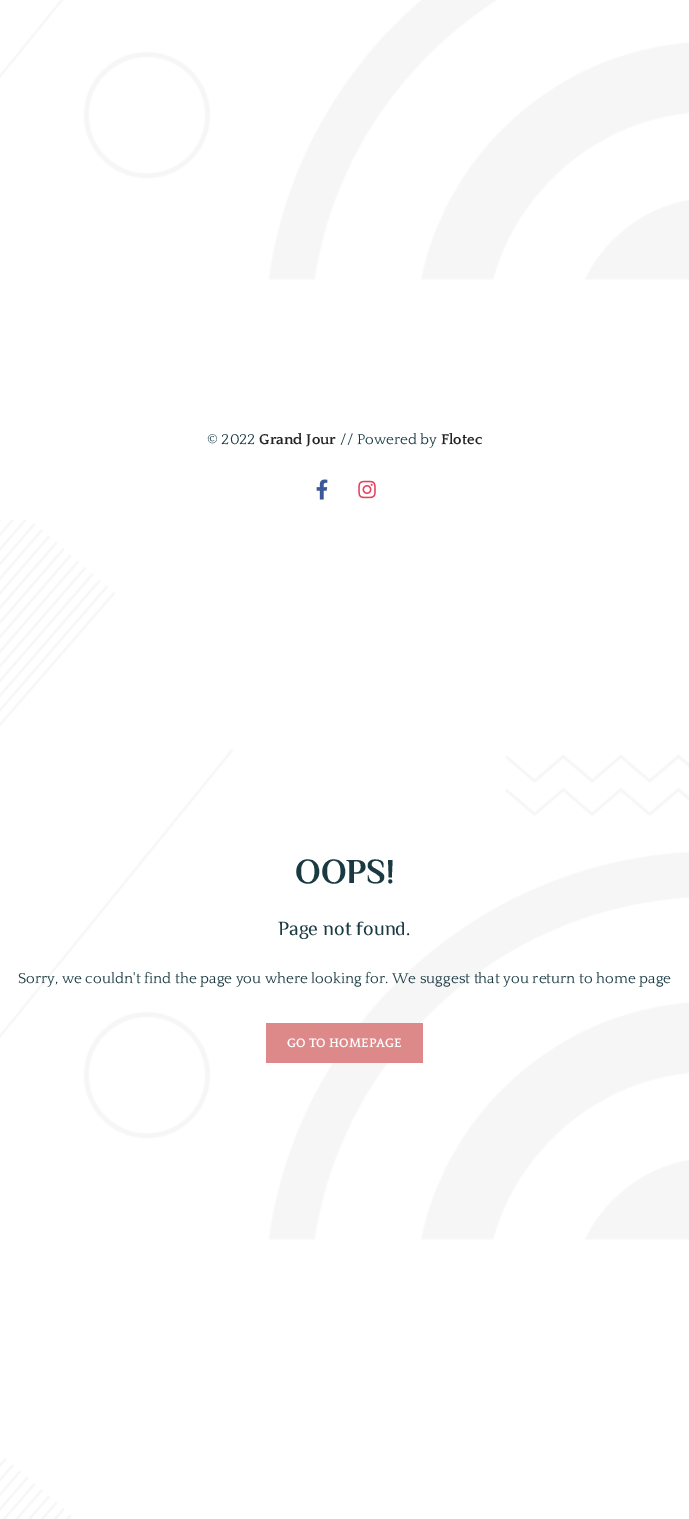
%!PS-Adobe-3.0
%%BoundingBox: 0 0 689 1519
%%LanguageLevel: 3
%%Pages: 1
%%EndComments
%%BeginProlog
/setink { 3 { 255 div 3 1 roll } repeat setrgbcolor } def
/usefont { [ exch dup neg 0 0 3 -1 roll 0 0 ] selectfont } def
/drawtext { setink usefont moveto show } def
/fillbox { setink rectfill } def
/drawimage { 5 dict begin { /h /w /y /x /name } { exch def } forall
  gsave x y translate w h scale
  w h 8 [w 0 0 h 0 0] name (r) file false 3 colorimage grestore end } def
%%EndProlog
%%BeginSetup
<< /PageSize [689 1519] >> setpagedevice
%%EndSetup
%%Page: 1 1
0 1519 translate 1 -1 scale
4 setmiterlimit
0 0 689 1519 255 255 255 fillbox
(assets/img3.rgb) 0 0 689 1519 drawimage
0 498 28 22 255 255 255 fillbox
(© 2022) 207 444 /Quattrocento-Regular 15 25 58 67 drawtext
(Grand Jour) 259 444 /Quattrocento-Bold 15 34 34 34 drawtext
(// Powered by) 340 444 /Quattrocento-Regular 15 25 58 67 drawtext
(Flotec) 441 444 /Quattrocento-Bold 15 34 34 34 drawtext
(assets/img1.rgb) 316 479 12 21 drawimage
(assets/img2.rgb) 358 480 18 19 drawimage
(OOPS!) 295 883 /ElMessiri-Bold 35 25 58 67 drawtext
(Page not found.) 278 935 /ElMessiri-Regular 20 25 58 67 drawtext
(Sorry, we couldn't find the page you where looking for. We suggest that you return to home page) 18 983 /Quattrocento-Regular 15 25 58 67 drawtext
266 1023 157 40 221 136 137 fillbox
(GO TO HOMEPAGE) 287 1047 /Quattrocento-Bold 13 255 255 255 drawtext
showpage
%%EOF
